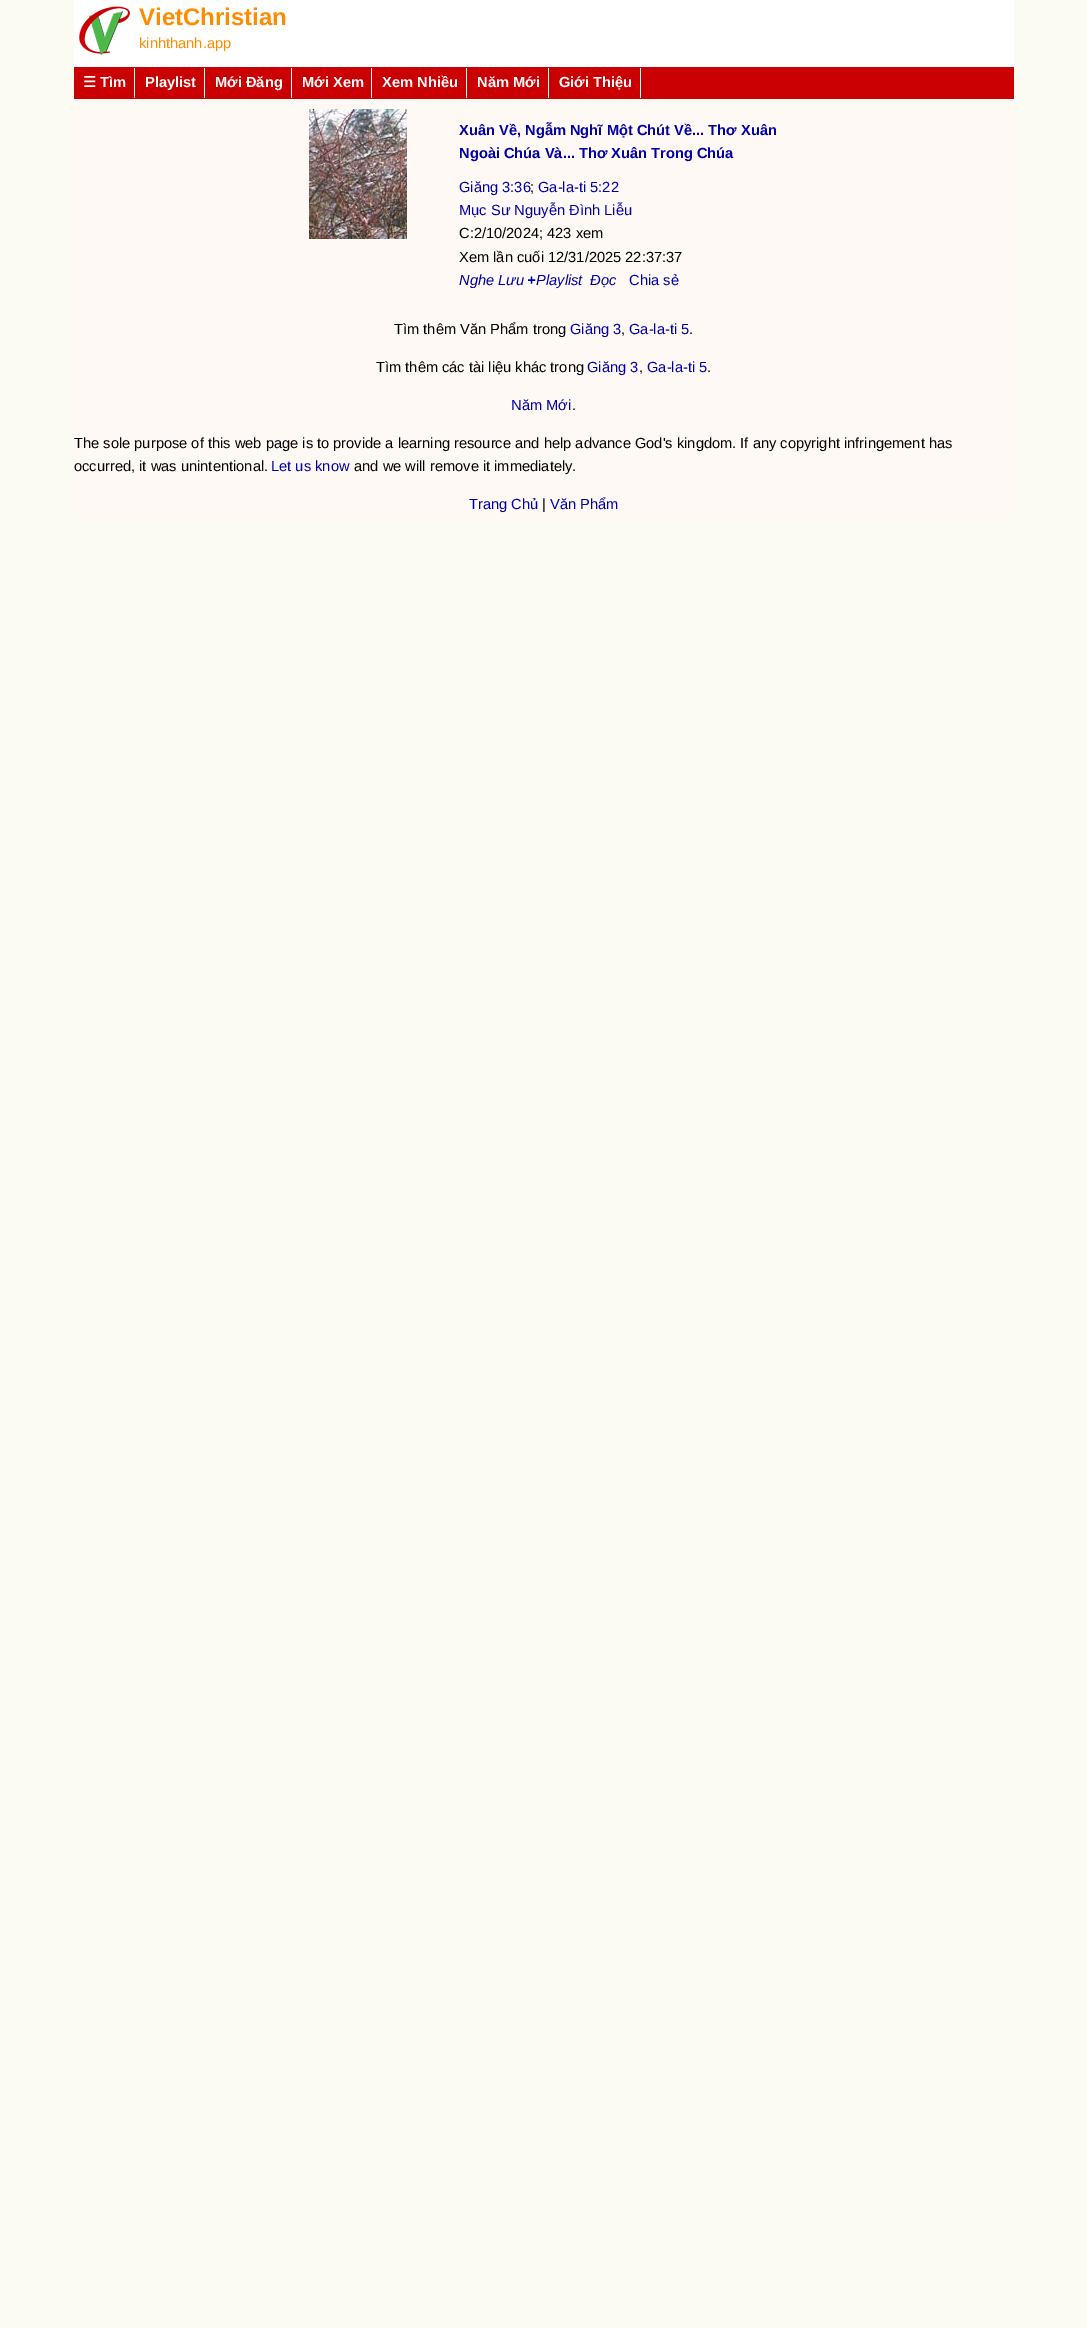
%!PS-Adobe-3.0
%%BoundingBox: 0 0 1087 2328
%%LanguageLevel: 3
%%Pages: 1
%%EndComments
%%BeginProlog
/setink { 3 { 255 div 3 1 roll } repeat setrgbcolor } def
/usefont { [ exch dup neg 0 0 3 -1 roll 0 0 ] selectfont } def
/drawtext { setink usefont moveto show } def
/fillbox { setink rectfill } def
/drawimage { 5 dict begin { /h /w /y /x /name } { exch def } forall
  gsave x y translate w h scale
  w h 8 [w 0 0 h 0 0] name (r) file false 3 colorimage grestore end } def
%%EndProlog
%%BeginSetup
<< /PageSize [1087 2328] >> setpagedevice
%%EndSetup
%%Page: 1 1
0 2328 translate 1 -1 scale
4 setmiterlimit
0 0 1087 2328 251 251 243 fillbox
74 99 940 418 255 249 245 fillbox
74 0 940 67 255 255 255 fillbox
(assets/img1.rgb) 79 6 51 49 drawimage
(VietChristian) 139 25 /LiberationSans-Bold 24 255 140 0 drawtext
(kinhthanh.app) 139 48 /LiberationSans-Regular 14.67 255 140 0 drawtext
74 67 940 32 202 0 2 fillbox
134 68 1 30 255 255 255 fillbox
(☰) 83 87 /DejaVuSans-Bold 14.67 255 255 255 drawtext
(Tìm) 100 87 /LiberationSans-Bold 14.67 255 255 255 drawtext
204 68 1 30 255 255 255 fillbox
(Playlist) 145 87 /LiberationSans-Bold 14.67 255 255 255 drawtext
291 68 1 30 255 255 255 fillbox
(Mới Đăng) 215 87 /LiberationSans-Bold 14.67 255 255 255 drawtext
371 68 1 30 255 255 255 fillbox
(Mới Xem) 302 87 /LiberationSans-Bold 14.67 255 255 255 drawtext
466 68 1 30 255 255 255 fillbox
(Xem Nhiều) 382 87 /LiberationSans-Bold 14.67 255 255 255 drawtext
548 68 1 30 255 255 255 fillbox
(Năm Mới) 477 87 /LiberationSans-Bold 14.67 255 255 255 drawtext
640 68 1 30 255 255 255 fillbox
(Giới Thiệu) 559 87 /LiberationSans-Bold 14.67 255 255 255 drawtext
(assets/img2.rgb) 309 109 98 130 drawimage
(Xuân Về, Ngẫm Nghĩ Một Chút Về... Thơ Xuân) 459 135 /LiberationSans-Bold 14.67 0 0 170 drawtext
(Ngoài Chúa Và... Thơ Xuân Trong Chúa) 459 158 /LiberationSans-Bold 14.67 0 0 170 drawtext
(Giăng 3:36) 459 192 /LiberationSans-Regular 14.67 0 0 170 drawtext
(;) 530 192 /LiberationSans-Regular 14.67 0 0 0 drawtext
(Ga-la-ti 5:22) 538 192 /LiberationSans-Regular 14.67 0 0 170 drawtext
(Mục Sư Nguyễn Đình Liễu) 459 215 /LiberationSans-Regular 14.67 0 0 170 drawtext
(C:2/10/2024; 423 xem) 459 238 /LiberationSans-Regular 14.67 0 0 0 drawtext
(Xem lần cuối 12/31/2025 22:37:37) 459 262 /LiberationSans-Regular 14.67 0 0 0 drawtext
(Nghe Lưu) 459 285 /LiberationSans-Italic 14.67 0 0 170 drawtext
(+) 527 285 /LiberationSans-BoldItalic 14.67 0 0 170 drawtext
(Playlist) 536 285 /LiberationSans-Italic 14.67 0 0 170 drawtext
(Đọc) 590 285 /LiberationSans-Italic 14.67 0 0 170 drawtext
(Chia sẻ) 629 285 /LiberationSans-Regular 14.67 0 0 170 drawtext
(Tìm thêm Văn Phẩm trong) 394 334 /LiberationSans-Regular 14.67 0 0 0 drawtext
(Giăng 3) 570 334 /LiberationSans-Regular 14.67 0 0 170 drawtext
(,) 621 334 /LiberationSans-Regular 14.67 0 0 0 drawtext
(Ga-la-ti 5) 629 334 /LiberationSans-Regular 14.67 0 0 170 drawtext
(.) 689 334 /LiberationSans-Regular 14.67 0 0 0 drawtext
(Tìm thêm các tài liệu khác trong) 376 372 /LiberationSans-Regular 14.67 0 0 0 drawtext
(Giăng 3) 587 372 /LiberationSans-Regular 14.67 0 0 170 drawtext
(,) 639 372 /LiberationSans-Regular 14.67 0 0 0 drawtext
(Ga-la-ti 5) 647 372 /LiberationSans-Regular 14.67 0 0 170 drawtext
(.) 707 372 /LiberationSans-Regular 14.67 0 0 0 drawtext
(Năm Mới) 511 410 /LiberationSans-Regular 14.67 0 0 170 drawtext
(.) 572 410 /LiberationSans-Regular 14.67 0 0 0 drawtext
(The sole purpose of this web page is to provide a learning resource and help advance God's kingdom. If any copyright infringement has) 74 448 /LiberationSans-Regular 14.67 0 0 0 drawtext
(occurred, it was unintentional.) 74 471 /LiberationSans-Regular 14.67 0 0 0 drawtext
(Let us know) 271 471 /LiberationSans-Regular 14.67 0 0 170 drawtext
(and we will remove it immediately.) 354 471 /LiberationSans-Regular 14.67 0 0 0 drawtext
(Trang Chủ) 469 509 /LiberationSans-Regular 14.67 0 0 170 drawtext
(|) 542 509 /LiberationSans-Regular 14.67 0 0 0 drawtext
(Văn Phẩm) 550 509 /LiberationSans-Regular 14.67 0 0 170 drawtext
showpage
%%EOF
